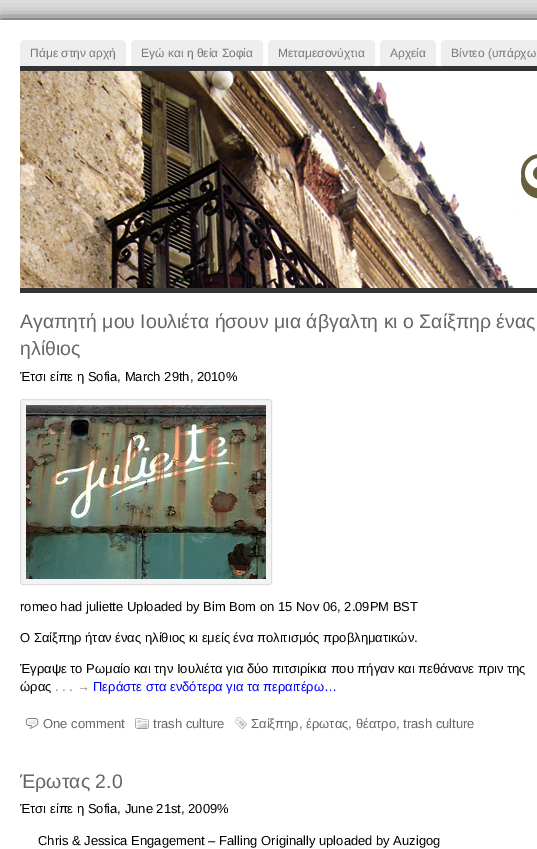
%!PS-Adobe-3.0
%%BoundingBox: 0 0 537 849
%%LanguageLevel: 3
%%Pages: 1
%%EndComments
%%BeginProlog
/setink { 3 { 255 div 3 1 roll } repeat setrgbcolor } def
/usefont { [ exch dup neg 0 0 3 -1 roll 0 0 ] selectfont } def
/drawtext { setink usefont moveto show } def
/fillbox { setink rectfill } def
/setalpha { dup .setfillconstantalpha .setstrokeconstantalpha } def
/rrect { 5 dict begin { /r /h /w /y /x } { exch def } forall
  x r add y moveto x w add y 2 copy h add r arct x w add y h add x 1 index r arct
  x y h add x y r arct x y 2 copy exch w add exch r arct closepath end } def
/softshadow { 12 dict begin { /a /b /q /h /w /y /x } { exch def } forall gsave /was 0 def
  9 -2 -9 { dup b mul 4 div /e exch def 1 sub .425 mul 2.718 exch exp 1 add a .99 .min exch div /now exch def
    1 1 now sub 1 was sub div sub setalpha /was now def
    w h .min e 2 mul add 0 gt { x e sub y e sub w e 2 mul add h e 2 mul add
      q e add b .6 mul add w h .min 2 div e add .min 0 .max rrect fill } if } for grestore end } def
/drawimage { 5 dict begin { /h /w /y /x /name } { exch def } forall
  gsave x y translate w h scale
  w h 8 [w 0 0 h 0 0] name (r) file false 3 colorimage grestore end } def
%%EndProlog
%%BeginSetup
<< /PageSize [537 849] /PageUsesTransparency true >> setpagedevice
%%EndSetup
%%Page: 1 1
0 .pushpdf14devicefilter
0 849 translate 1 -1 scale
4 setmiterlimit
0 0 537 849 221 221 221 fillbox
51 51 51 setink
0 20 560 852 0 7.5 1 softshadow
0 20 537 829 255 255 255 fillbox
238 238 238 setink
25 40 moveto 121 40 lineto 124 40 126 42 126 45 curveto 126 66 lineto 20 66 lineto 20 45 lineto 20 42 22 40 25 40 curveto closepath fill
(Πάμε στην αρχή) 30 57 /LiberationSans-Regular 12 119 119 119 drawtext
238 238 238 setink
136 40 moveto 258 40 lineto 261 40 263 42 263 45 curveto 263 66 lineto 131 66 lineto 131 45 lineto 131 42 133 40 136 40 curveto closepath fill
(Εγώ και η θεία Σοφία) 141 57 /LiberationSans-Regular 12 119 119 119 drawtext
238 238 238 setink
273 40 moveto 370 40 lineto 373 40 375 42 375 45 curveto 375 66 lineto 268 66 lineto 268 45 lineto 268 42 270 40 273 40 curveto closepath fill
(Μεταμεσονύχτια) 278 57 /LiberationSans-Regular 12 119 119 119 drawtext
238 238 238 setink
385 40 moveto 431 40 lineto 434 40 436 42 436 45 curveto 436 66 lineto 380 66 lineto 380 45 lineto 380 42 382 40 385 40 curveto closepath fill
(Αρχεία) 390 57 /LiberationSans-Regular 12 119 119 119 drawtext
238 238 238 setink
446 40 moveto 537 40 lineto 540 40 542 42 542 45 curveto 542 66 lineto 441 66 lineto 441 45 lineto 441 42 443 40 446 40 curveto closepath fill
(Βίντεο \(υπάρχω) 451 57 /LiberationSans-Regular 12 119 119 119 drawtext
(assets/img1.rgb) 20 71 517 217 drawimage
20 66 517 5 51 51 51 fillbox
20 288 517 5 51 51 51 fillbox
(Αγαπητή μου Ιουλιέτα ήσουν μια άβγαλτη κι ο Σαίξπηρ ένας) 20 328 /LiberationSans-Regular 19.5 102 102 102 drawtext
(ηλίθιος) 20 355 /LiberationSans-Regular 19.5 102 102 102 drawtext
(Έτσι είπε η Sofia, March 29th, 2010%) 20 381 /LiberationSans-Regular 13 0 0 0 drawtext
243 243 243 setink
20.5 399.5 251 185 2.5 rrect gsave fill grestore
221 221 221 setink
stroke
(assets/img2.rgb) 26 405 240 174 drawimage
(romeo had juliette Uploaded by Bim Bom on 15 Nov 06, 2.09PM BST) 20 611 /LiberationSans-Regular 13 0 0 0 drawtext
(Ο Σαίξπηρ ήταν ένας ηλίθιος κι εμείς ένα πολιτισμός προβληματικών.) 20 642 /LiberationSans-Regular 13 0 0 0 drawtext
(Έγραψε το Ρωμαίο και την Ιουλιέτα για δύο πιτσιρίκια που πήγαν και πεθάνανε πριν της) 20 673 /LiberationSans-Regular 13 0 0 0 drawtext
(ώρας) 20 691 /LiberationSans-Regular 13 0 0 0 drawtext
(. . . →) 55 691 /LiberationSans-Regular 13 119 119 119 drawtext
(Περάστε στα ενδότερα για τα περαιτέρω…) 93 691 /LiberationSans-Regular 13 0 0 255 drawtext
(assets/img3.rgb) 25 718 14 11 drawimage
(One comment) 43 728 /LiberationSans-Regular 13 102 102 102 drawtext
(assets/img4.rgb) 135 718 14 11 drawimage
(trash culture) 153 728 /LiberationSans-Regular 13 102 102 102 drawtext
(assets/img5.rgb) 235 717 12 12 drawimage
(Σαίξπηρ, έρωτας, θέατρο, trash culture) 251 728 /LiberationSans-Regular 13 102 102 102 drawtext
(Έρωτας 2.0) 20 788 /LiberationSans-Regular 19.5 102 102 102 drawtext
(Έτσι είπε η Sofia, June 21st, 2009%) 20 813 /LiberationSans-Regular 13 0 0 0 drawtext
(Chris & Jessica Engagement – Falling Originally uploaded by Auzigog) 38 845 /LiberationSans-Regular 13 0 0 0 drawtext
.poppdf14devicefilter showpage
%%EOF
